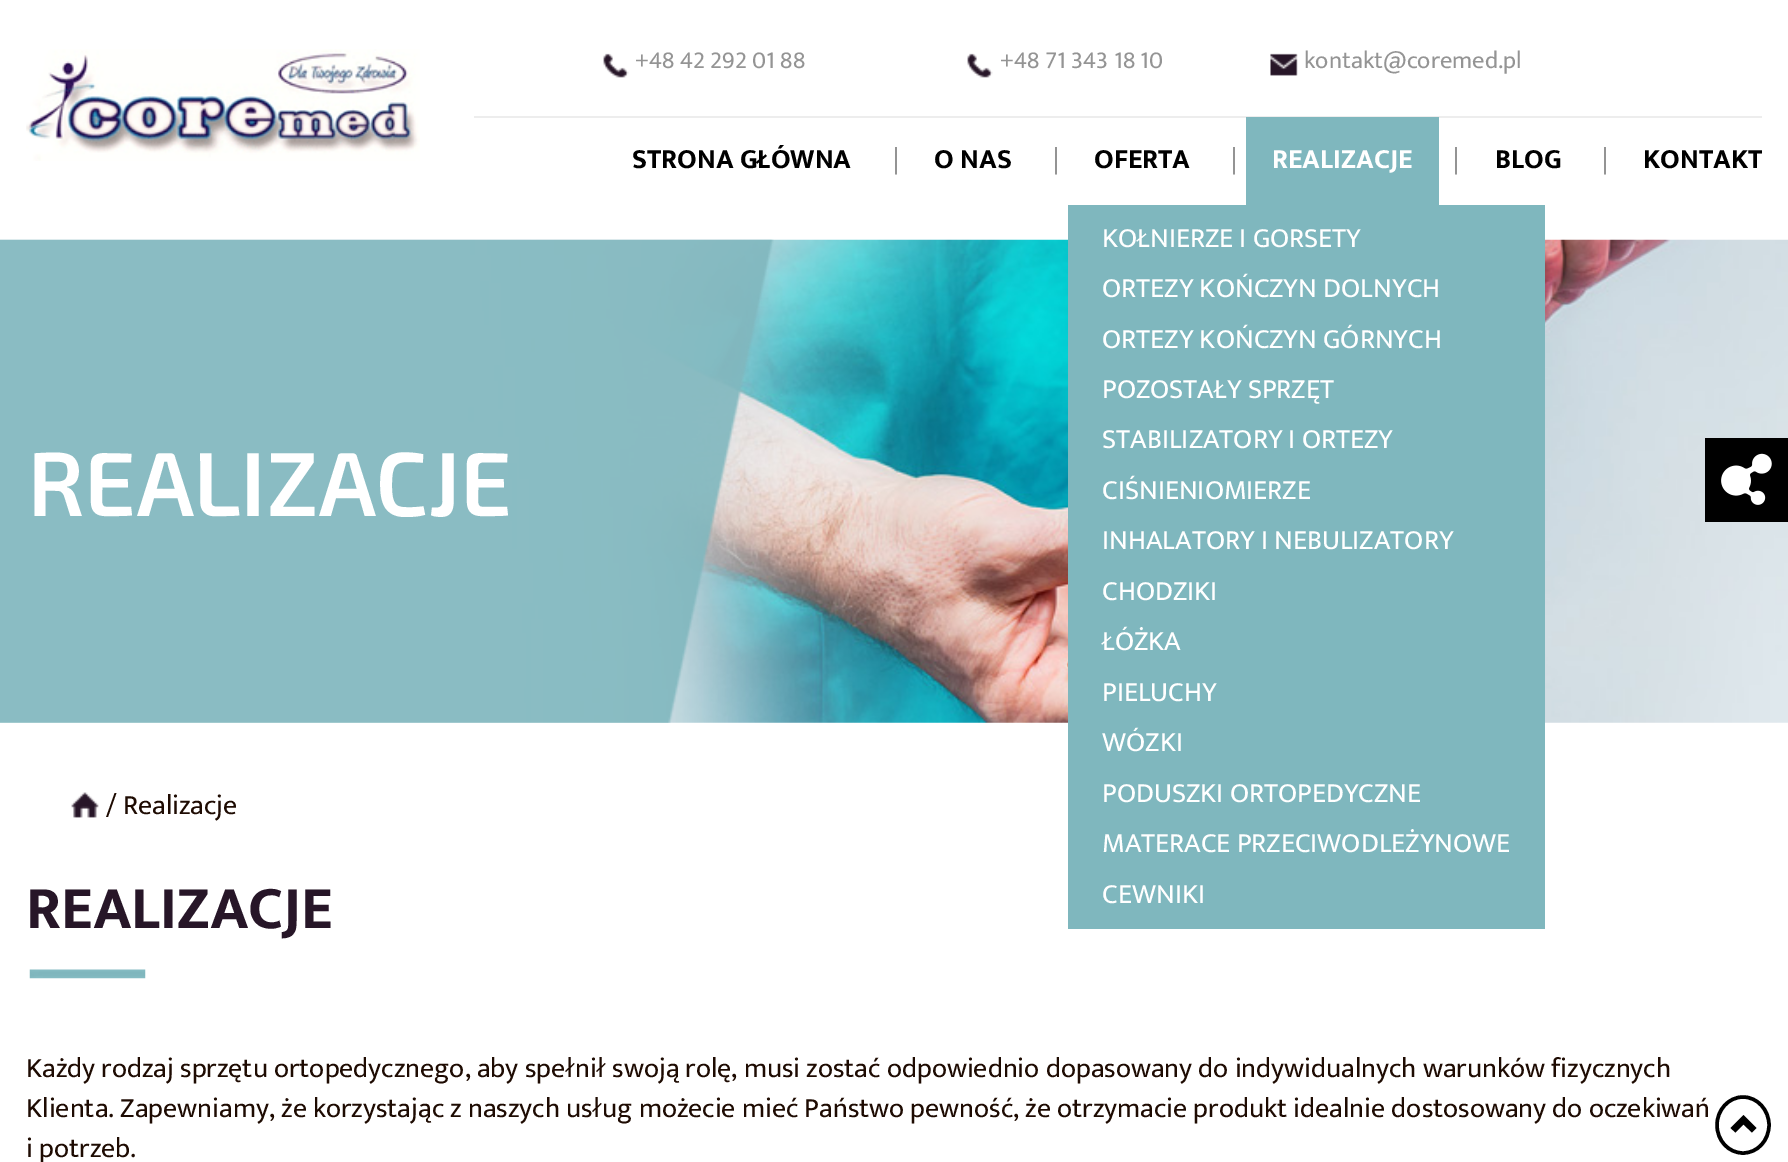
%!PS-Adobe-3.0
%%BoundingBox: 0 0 1788 1162
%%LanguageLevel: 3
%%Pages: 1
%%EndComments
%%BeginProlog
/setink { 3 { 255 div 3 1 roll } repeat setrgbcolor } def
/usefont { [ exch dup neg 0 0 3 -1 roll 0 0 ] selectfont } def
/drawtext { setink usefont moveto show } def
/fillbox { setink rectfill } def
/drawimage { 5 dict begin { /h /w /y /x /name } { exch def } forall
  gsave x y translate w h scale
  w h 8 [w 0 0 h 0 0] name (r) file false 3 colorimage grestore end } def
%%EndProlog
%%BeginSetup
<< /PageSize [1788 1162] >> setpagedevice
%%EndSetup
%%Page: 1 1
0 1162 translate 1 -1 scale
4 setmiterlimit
0 0 1788 1162 255 255 255 fillbox
(assets/img2.rgb) 0 239 1788 484 drawimage
(assets/img1.rgb) 0 239 774 484 drawimage
(REALIZACJE) 26 516 /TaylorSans-SemiBold 91 255 255 255 drawtext
(assets/img3.rgb) 26 49 394 112 drawimage
474 116 1288 2 237 237 237 fillbox
(assets/img4.rgb) 603 53 26 25 drawimage
(+48 42 292 01 88) 635 68 /EkMukta-Regular 24.5 148 148 148 drawtext
(assets/img4.rgb) 967 53 26 25 drawimage
(+48 71 343 18 10) 1000 68 /EkMukta-Regular 24.5 148 148 148 drawtext
(assets/img5.rgb) 1270 53 28 23 drawimage
(kontakt@coremed.pl) 1304 68 /EkMukta-Regular 24.5 148 148 148 drawtext
(STRONA GŁÓWNA) 632 168 /EkMukta-Bold 28 0 0 0 drawtext
(|) 893 168 /EkMukta-Regular 28 148 148 148 drawtext
(O NAS) 934 168 /EkMukta-Bold 28 0 0 0 drawtext
(|) 1053 168 /EkMukta-Regular 28 148 148 148 drawtext
(OFERTA) 1094 168 /EkMukta-Bold 28 0 0 0 drawtext
(|) 1231 168 /EkMukta-Regular 28 148 148 148 drawtext
1068 205 477 724 127 183 190 fillbox
(KOŁNIERZE I GORSETY) 1102 247 /EkMukta-Regular 28 255 255 255 drawtext
(ORTEZY KOŃCZYN DOLNYCH) 1102 297 /EkMukta-Regular 28 255 255 255 drawtext
(ORTEZY KOŃCZYN GÓRNYCH) 1102 348 /EkMukta-Regular 28 255 255 255 drawtext
(POZOSTAŁY SPRZĘT) 1102 398 /EkMukta-Regular 28 255 255 255 drawtext
(STABILIZATORY I ORTEZY) 1102 448 /EkMukta-Regular 28 255 255 255 drawtext
(CIŚNIENIOMIERZE) 1102 499 /EkMukta-Regular 28 255 255 255 drawtext
(INHALATORY I NEBULIZATORY) 1102 549 /EkMukta-Regular 28 255 255 255 drawtext
(CHODZIKI) 1102 600 /EkMukta-Regular 28 255 255 255 drawtext
(ŁÓŻKA) 1102 650 /EkMukta-Regular 28 255 255 255 drawtext
(PIELUCHY) 1102 701 /EkMukta-Regular 28 255 255 255 drawtext
(WÓZKI) 1102 751 /EkMukta-Regular 28 255 255 255 drawtext
(PODUSZKI ORTOPEDYCZNE) 1102 802 /EkMukta-Regular 28 255 255 255 drawtext
(MATERACE PRZECIWODLEŻYNOWE) 1102 852 /EkMukta-Regular 28 255 255 255 drawtext
(CEWNIKI) 1102 903 /EkMukta-Regular 28 255 255 255 drawtext
1246 117 193 88 127 183 190 fillbox
(REALIZACJE) 1272 168 /EkMukta-Bold 28 255 255 255 drawtext
(|) 1453 168 /EkMukta-Regular 28 148 148 148 drawtext
(BLOG) 1495 168 /EkMukta-Bold 28 0 0 0 drawtext
(|) 1602 168 /EkMukta-Regular 28 148 148 148 drawtext
(KONTAKT) 1643 168 /EkMukta-Bold 28 0 0 0 drawtext
(assets/img6.rgb) 71 792 28 26 drawimage
(/ Realizacje) 106 814 /EkMukta-Regular 28 30 11 2 drawtext
(REALIZACJE) 26 928 /EkMukta-Bold 61.25 39 22 40 drawtext
(assets/img7.rgb) 29 969 117 10 drawimage
(Każdy rodzaj sprzętu ortopedycznego, aby spełnił swoją rolę, musi zostać odpowiednio dopasowany do indywidualnych warunków fizycznych) 26 1077 /EkMukta-Regular 28 30 11 2 drawtext
(Klienta. Zapewniamy, że korzystając z naszych usług możecie mieć Państwo pewność, że otrzymacie produkt idealnie dostosowany do oczekiwań) 26 1117 /EkMukta-Regular 28 30 11 2 drawtext
(i potrzeb.) 26 1157 /EkMukta-Regular 28 30 11 2 drawtext
1705 438 83 84 0 0 0 fillbox
(assets/img8.rgb) 1721 453 51 52 drawimage
3.5 setlinewidth
1743 1097 moveto 1757.5 1097 1769 1110 1769 1125 curveto 1769 1140.5 1757.5 1153 1743 1153 curveto 1728.5 1153 1717 1140.5 1717 1125 curveto 1717 1110 1728.5 1097 1743 1097 curveto closepath stroke
1756.5 1128 moveto 1752 1132.5 lineto 1743.5 1124.5 lineto 1735.5 1132.5 lineto 1730.5 1128 lineto 1743.5 1115 lineto closepath fill
showpage
%%EOF
